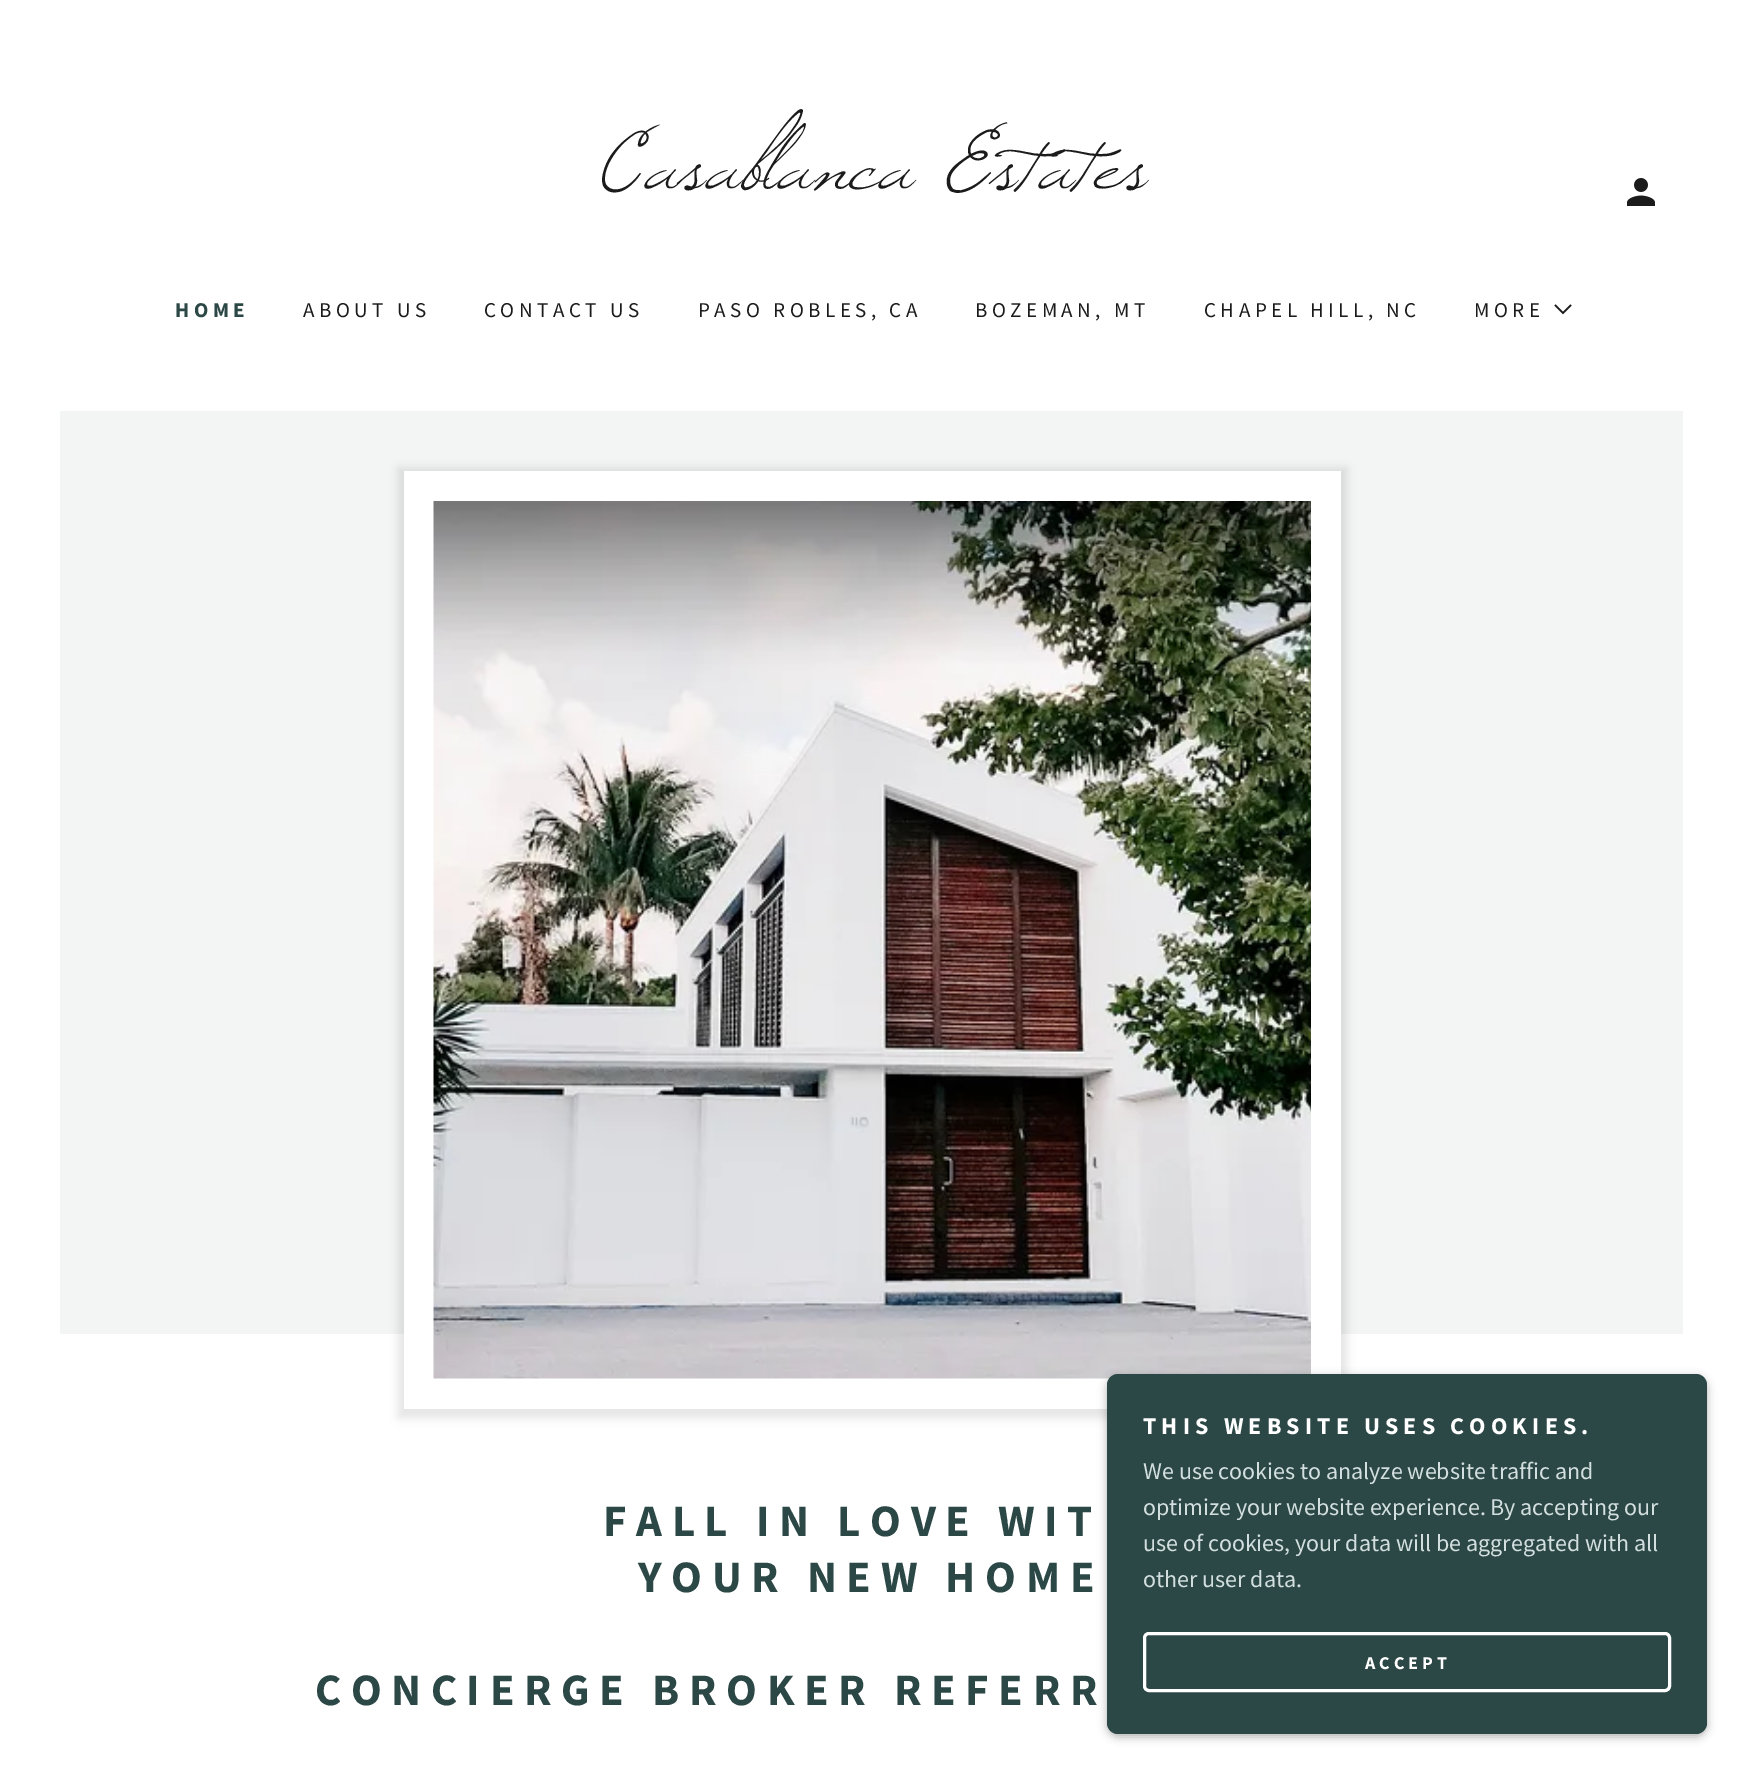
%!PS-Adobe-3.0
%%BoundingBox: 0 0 1743 1770
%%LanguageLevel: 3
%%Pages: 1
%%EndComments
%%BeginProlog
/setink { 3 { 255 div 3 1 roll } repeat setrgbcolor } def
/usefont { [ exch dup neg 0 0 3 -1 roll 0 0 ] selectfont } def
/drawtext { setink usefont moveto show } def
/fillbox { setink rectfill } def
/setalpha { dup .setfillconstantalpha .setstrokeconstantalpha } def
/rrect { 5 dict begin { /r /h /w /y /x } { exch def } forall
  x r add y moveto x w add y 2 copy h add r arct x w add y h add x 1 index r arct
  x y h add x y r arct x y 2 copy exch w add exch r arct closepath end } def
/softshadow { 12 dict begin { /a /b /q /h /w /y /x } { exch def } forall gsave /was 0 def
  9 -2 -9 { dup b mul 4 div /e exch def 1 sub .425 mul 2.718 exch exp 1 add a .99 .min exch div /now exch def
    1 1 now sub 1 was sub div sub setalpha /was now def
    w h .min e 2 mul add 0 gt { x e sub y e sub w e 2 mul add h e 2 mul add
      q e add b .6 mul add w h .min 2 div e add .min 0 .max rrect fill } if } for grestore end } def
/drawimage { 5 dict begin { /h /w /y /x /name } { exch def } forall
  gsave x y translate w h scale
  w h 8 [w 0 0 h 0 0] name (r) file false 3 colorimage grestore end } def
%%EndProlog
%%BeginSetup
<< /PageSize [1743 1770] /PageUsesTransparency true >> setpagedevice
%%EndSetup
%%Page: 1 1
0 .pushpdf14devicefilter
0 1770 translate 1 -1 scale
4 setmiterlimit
0 0 1743 1770 255 255 255 fillbox
(Casablanca Estates) 599 188 /Windsong-Regular 105 27 27 27 drawtext
(assets/img1.rgb) 1627 178 28 28 drawimage
/SourceSansPro-Bold 21 usefont
43 71 70 setink
175 317 moveto 4.5 0 (HOME) ashow
/SourceSansPro-Regular 21 usefont
27 27 27 setink
303 317 moveto 4.5 0 (ABOUT US) ashow
484 317 moveto 4.5 0 (CONTACT US) ashow
698 317 moveto 4.5 0 (PASO ROBLES, CA) ashow
975 317 moveto 4.5 0 (BOZEMAN, MT) ashow
1204 317 moveto 4.5 0 (CHAPEL HILL, NC) ashow
1474 317 moveto 4.5 0 (MORE) ashow
1.5 setlinewidth
2 setlinecap
1563 313 moveto 1562.5 313 lineto closepath 1563 313 moveto 1571 305 lineto 1563 313 lineto 1555 305 lineto closepath stroke
60 411 1623 923 243 245 245 fillbox
0 0 0 setink
398 468 949 950 0 4.5 0.1 softshadow
404 471 937 938 255 255 255 fillbox
(assets/img2.rgb) 433 501 878 878 drawimage
/SourceSansPro-Bold 45 usefont
43 71 70 setink
603 1536 moveto 9.6 0 (FALL IN LOVE WIT) ashow
638 1592 moveto 9.6 0 (YOUR NEW HOME) ashow
315 1705 moveto 9.6 0 (CONCIERGE BROKER REFERR) ashow
0 0 0 setink
1107 1377 600 360 11 4.5 0.3 softshadow
43 71 70 setink
1107 1374 600 360 11 rrect fill
/SourceSansPro-Bold 24 usefont
255 255 255 setink
1143 1434 moveto 5.15 0 (THIS WEBSITE USES COOKIES.) ashow
(We use cookies to analyze website traffic and) 1143 1479 /SourceSansPro-Regular 24 211 223 223 drawtext
(optimize your website experience. By accepting our) 1143 1515 /SourceSansPro-Regular 24 211 223 223 drawtext
(use of cookies, your data will be aggregated with all) 1143 1551 /SourceSansPro-Regular 24 211 223 223 drawtext
(other user data.) 1143 1587 /SourceSansPro-Regular 24 211 223 223 drawtext
255 255 255 setink
3 setlinewidth
0 setlinecap
1144.5 1633.5 525 57 4.5 rrect stroke
/SourceSansPro-Bold 18 usefont
1365 1669 moveto 4 0 (ACCEPT) ashow
.poppdf14devicefilter showpage
%%EOF
